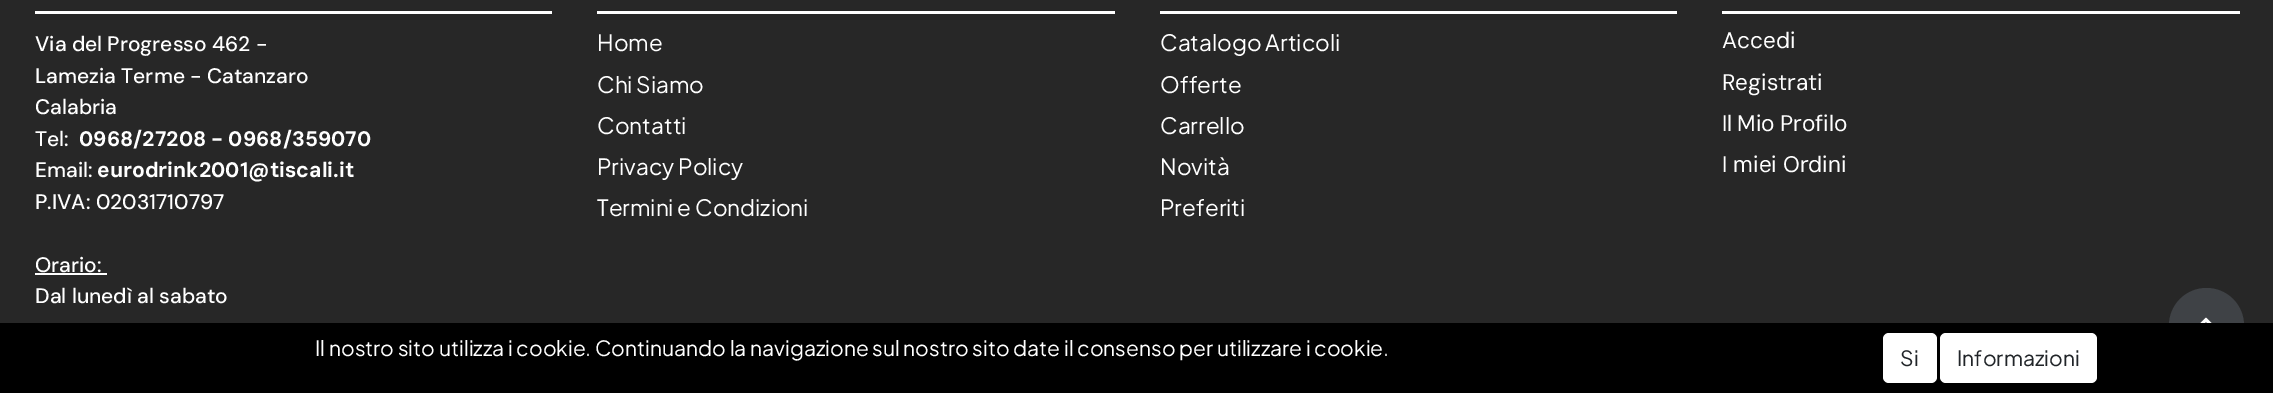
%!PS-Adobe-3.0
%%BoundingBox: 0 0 2273 393
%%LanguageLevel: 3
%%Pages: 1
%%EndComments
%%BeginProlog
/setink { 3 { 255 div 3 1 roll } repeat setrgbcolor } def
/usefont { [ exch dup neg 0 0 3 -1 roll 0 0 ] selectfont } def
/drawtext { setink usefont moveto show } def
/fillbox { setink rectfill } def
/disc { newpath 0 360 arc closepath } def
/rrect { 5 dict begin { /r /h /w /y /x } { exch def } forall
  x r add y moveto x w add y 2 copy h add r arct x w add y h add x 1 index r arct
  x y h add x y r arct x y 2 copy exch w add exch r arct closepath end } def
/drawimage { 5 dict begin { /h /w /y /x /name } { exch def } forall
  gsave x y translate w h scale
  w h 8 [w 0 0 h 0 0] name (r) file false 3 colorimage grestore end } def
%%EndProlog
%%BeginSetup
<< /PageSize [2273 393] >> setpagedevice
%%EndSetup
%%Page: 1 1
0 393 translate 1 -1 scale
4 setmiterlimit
0 0 2273 393 39 39 39 fillbox
35 11 517 3 255 255 255 fillbox
(Via del Progresso 462 -) 35 51 /DMSans-Medium 21 255 255 255 drawtext
(Lamezia Terme - Catanzaro) 35 83 /DMSans-Medium 21 255 255 255 drawtext
(Calabria) 35 114 /DMSans-Medium 21 255 255 255 drawtext
(Tel:) 35 146 /DMSans-Medium 21 255 255 255 drawtext
(0968/27208 - 0968/359070) 79 146 /DMSans-Bold 21 255 255 255 drawtext
(Email:) 35 177 /DMSans-Medium 21 255 255 255 drawtext
(eurodrink2001@tiscali.it) 97 177 /DMSans-Bold 21 255 255 255 drawtext
(P.IVA: 02031710797) 35 209 /DMSans-Medium 21 255 255 255 drawtext
(Orario:) 35 272 /DMSans-Medium 21 255 255 255 drawtext
35 273 72 2 255 255 255 fillbox
(Dal lunedì al sabato) 35 303 /DMSans-Medium 21 255 255 255 drawtext
597 11 518 3 255 255 255 fillbox
(Home) 597 51 /PlusJakartaSans-Regular 22.5 255 255 255 drawtext
(Chi Siamo) 597 93 /PlusJakartaSans-Regular 22.5 255 255 255 drawtext
(Contatti) 597 134 /PlusJakartaSans-Regular 22.5 255 255 255 drawtext
(Privacy Policy) 597 175 /PlusJakartaSans-Regular 22.5 255 255 255 drawtext
(Termini e Condizioni) 597 216 /PlusJakartaSans-Regular 22.5 255 255 255 drawtext
1160 11 517 3 255 255 255 fillbox
(Catalogo Articoli) 1160 51 /PlusJakartaSans-Regular 22.5 255 255 255 drawtext
(Offerte) 1160 93 /PlusJakartaSans-Regular 22.5 255 255 255 drawtext
(Carrello) 1160 134 /PlusJakartaSans-Regular 22.5 255 255 255 drawtext
(Novità) 1160 175 /PlusJakartaSans-Regular 22.5 255 255 255 drawtext
(Preferiti) 1160 216 /PlusJakartaSans-Regular 22.5 255 255 255 drawtext
1722 11 518 3 255 255 255 fillbox
(Accedi) 1722 48 /DMSans-Regular 22.5 255 255 255 drawtext
(Registrati) 1722 90 /DMSans-Regular 22.5 255 255 255 drawtext
1722 131 moveto -1 0 32 (Il Mio Profilo) widthshow
(I miei Ordini) 1722 172 /DMSans-Regular 22.5 255 255 255 drawtext
63 66 70 setink
2206.5 325.5 37.5 disc fill
(assets/img1.rgb) 2200 317 12 6 drawimage
0 323 2273 70 0 0 0 fillbox
(Il nostro sito utilizza i cookie. Continuando la navigazione sul nostro sito date il consenso per utilizzare i cookie.) 315 356 /PlusJakartaSans-Regular 21 255 255 255 drawtext
1883 333 54 50 6 rrect fill
(Si) 1900 366 /PlusJakartaSans-Regular 21 33 37 41 drawtext
255 255 255 setink
1940 333 157 50 6 rrect fill
(Informazioni) 1957 366 /PlusJakartaSans-Regular 21 33 37 41 drawtext
showpage
%%EOF
